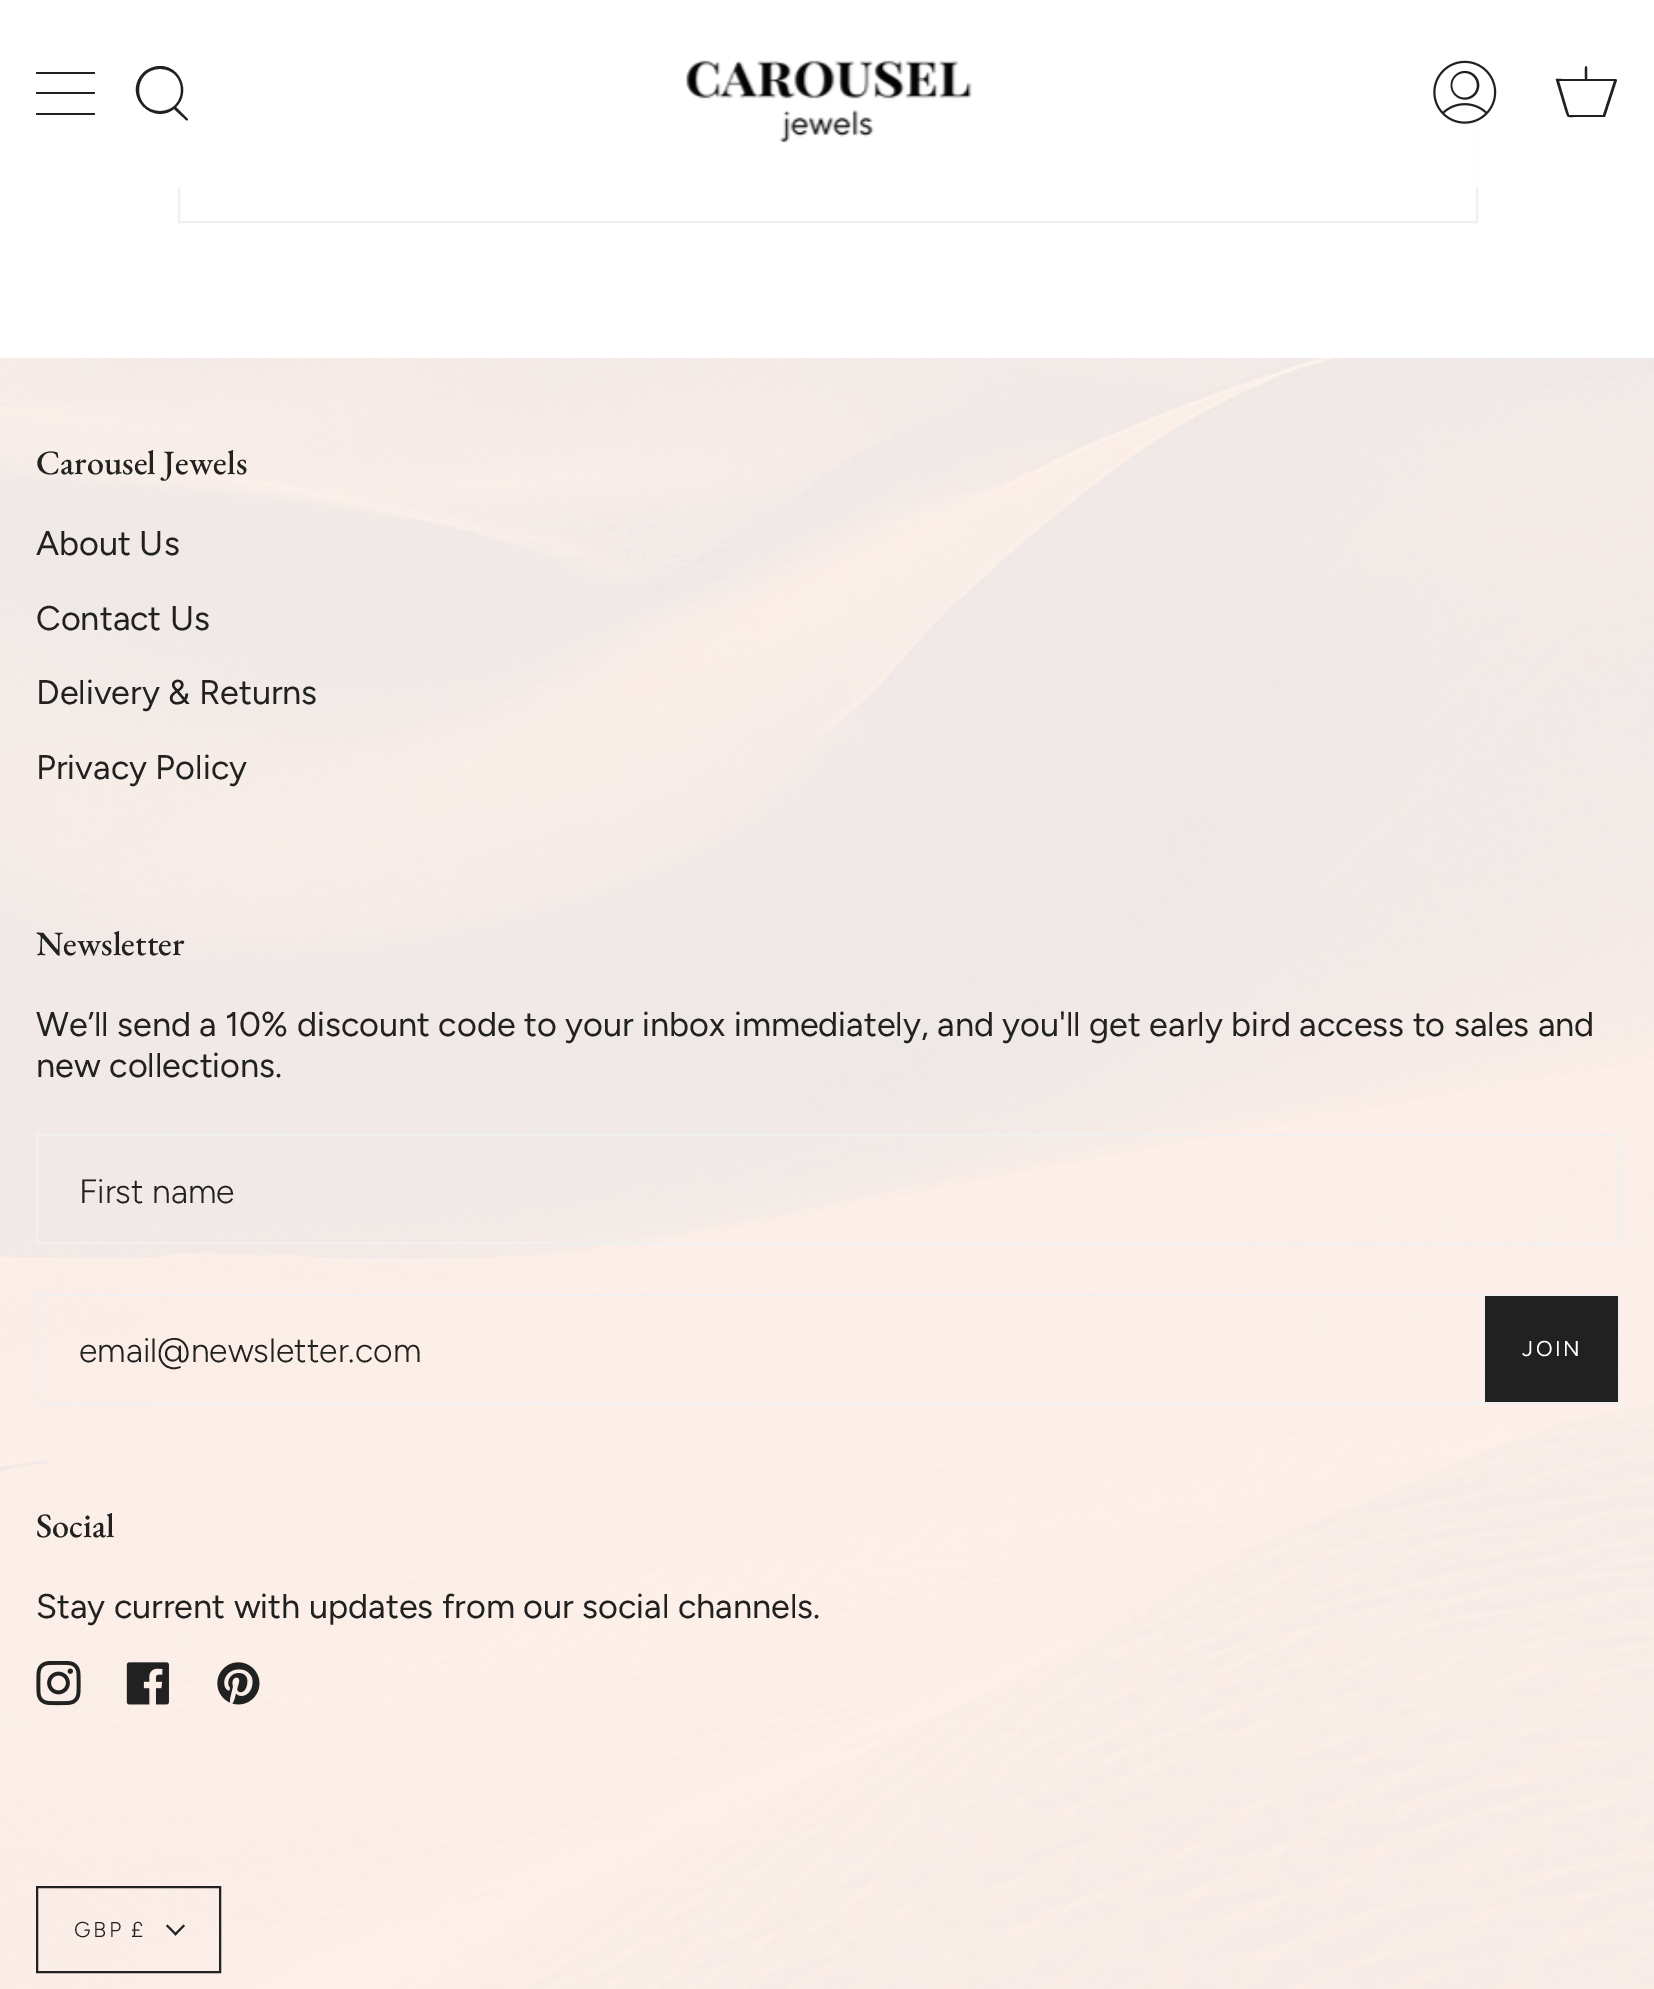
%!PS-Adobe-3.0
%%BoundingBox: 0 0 1654 1989
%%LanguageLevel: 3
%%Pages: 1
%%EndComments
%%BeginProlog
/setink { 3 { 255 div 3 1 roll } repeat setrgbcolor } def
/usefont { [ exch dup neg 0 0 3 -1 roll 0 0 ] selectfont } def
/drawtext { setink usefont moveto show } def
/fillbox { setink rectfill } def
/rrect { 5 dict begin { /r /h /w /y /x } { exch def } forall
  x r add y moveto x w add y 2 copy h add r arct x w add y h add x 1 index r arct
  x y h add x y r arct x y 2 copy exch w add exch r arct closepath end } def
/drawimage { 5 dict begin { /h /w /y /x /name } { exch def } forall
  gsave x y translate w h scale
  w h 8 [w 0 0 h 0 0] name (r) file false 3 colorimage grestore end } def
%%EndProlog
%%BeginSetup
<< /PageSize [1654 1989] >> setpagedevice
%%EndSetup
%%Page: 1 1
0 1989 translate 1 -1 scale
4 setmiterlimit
0 0 1654 1989 255 255 255 fillbox
240 240 240 setink
2 setlinewidth
179 111 1298 111 rectstroke
178 110 1300 77 255 255 255 fillbox
33 33 33 setink
36 72 59 2 1 rrect fill
36 92 59 2 1 rrect fill
36 113 59 2 1 rrect fill
160 66 moveto 181 66 191 93 176 107 curveto 188 119 lineto 188 120 187 121 186 120 curveto 174 109 lineto 152 126 122 95 143 73 curveto 147 69 154 66 160 66 curveto closepath 160 69 moveto 132 69 132 111 160 111 curveto 188 111 188 69 160 69 curveto closepath fill
(assets/img1.rgb) 686 60 287 83 drawimage
(assets/img2.rgb) 1433 60 64 64 drawimage
1586 66 moveto 1588 66 1587 77 1587 79 curveto 1616 79 lineto 1617 80 lineto 1605 117 lineto 1574 117 lineto 1566 117 1568 118 1565 110 curveto 1556 80 lineto 1555 78 1559 79 1562 79 curveto 1585 79 lineto 1585 77 1584 66 1586 66 curveto closepath 1614 81 moveto 1559 81 lineto 1569 115 lineto 1603 115 lineto closepath fill
(assets/img3.rgb) 0 358 1654 1631 drawimage
(Carousel Jewels) 36 474 /EBGaramond-Medium 34.2 33 33 33 drawtext
(About Us) 36 555 /Figtree-Regular 34.2 33 33 33 drawtext
(Contact Us) 36 630 /Figtree-Regular 34.2 33 33 33 drawtext
(Delivery & Returns) 36 704 /Figtree-Regular 34.2 33 33 33 drawtext
(Privacy Policy) 36 779 /Figtree-Regular 34.2 33 33 33 drawtext
(Newsletter) 36 955 /EBGaramond-Medium 34.2 33 33 33 drawtext
(We’ll send a 10% discount code to your inbox immediately, and you'll get early bird access to sales and) 36 1036 /Figtree-Regular 34.2 33 33 33 drawtext
(new collections.) 36 1077 /Figtree-Regular 34.2 33 33 33 drawtext
240 240 240 setink
37 1135 1582 108 rectstroke
(First name) 79 1203 /Figtree-Light 33.75 33 33 33 drawtext
240 240 240 setink
37 1295 1582 108 rectstroke
(email@newsletter.com) 79 1362 /Figtree-Light 33.75 33 33 33 drawtext
1485 1296 133 106 33 33 33 fillbox
/Figtree-Regular 21.5 usefont
255 255 255 setink
1522 1356 moveto 2.5 0 (JOIN) ashow
(Social) 36 1537 /EBGaramond-Medium 34.2 33 33 33 drawtext
(Stay current with updates from our social channels.) 36 1618 /Figtree-Regular 34.2 33 33 33 drawtext
(assets/img4.rgb) 36 1661 45 45 drawimage
(assets/img5.rgb) 126 1662 43 43 drawimage
(assets/img6.rgb) 217 1662 43 43 drawimage
37 1887 183 85 rectstroke
/Figtree-Light 21.5 usefont
74 1937 moveto 2.5 0 (GBP £) ashow
174 1934 moveto 183.5 1924.5 lineto 185 1926 lineto 175.5 1935.5 lineto closepath fill
166 1926 moveto 167.5 1924.5 lineto 177 1934 lineto 175.5 1935.5 lineto closepath fill
showpage
%%EOF
